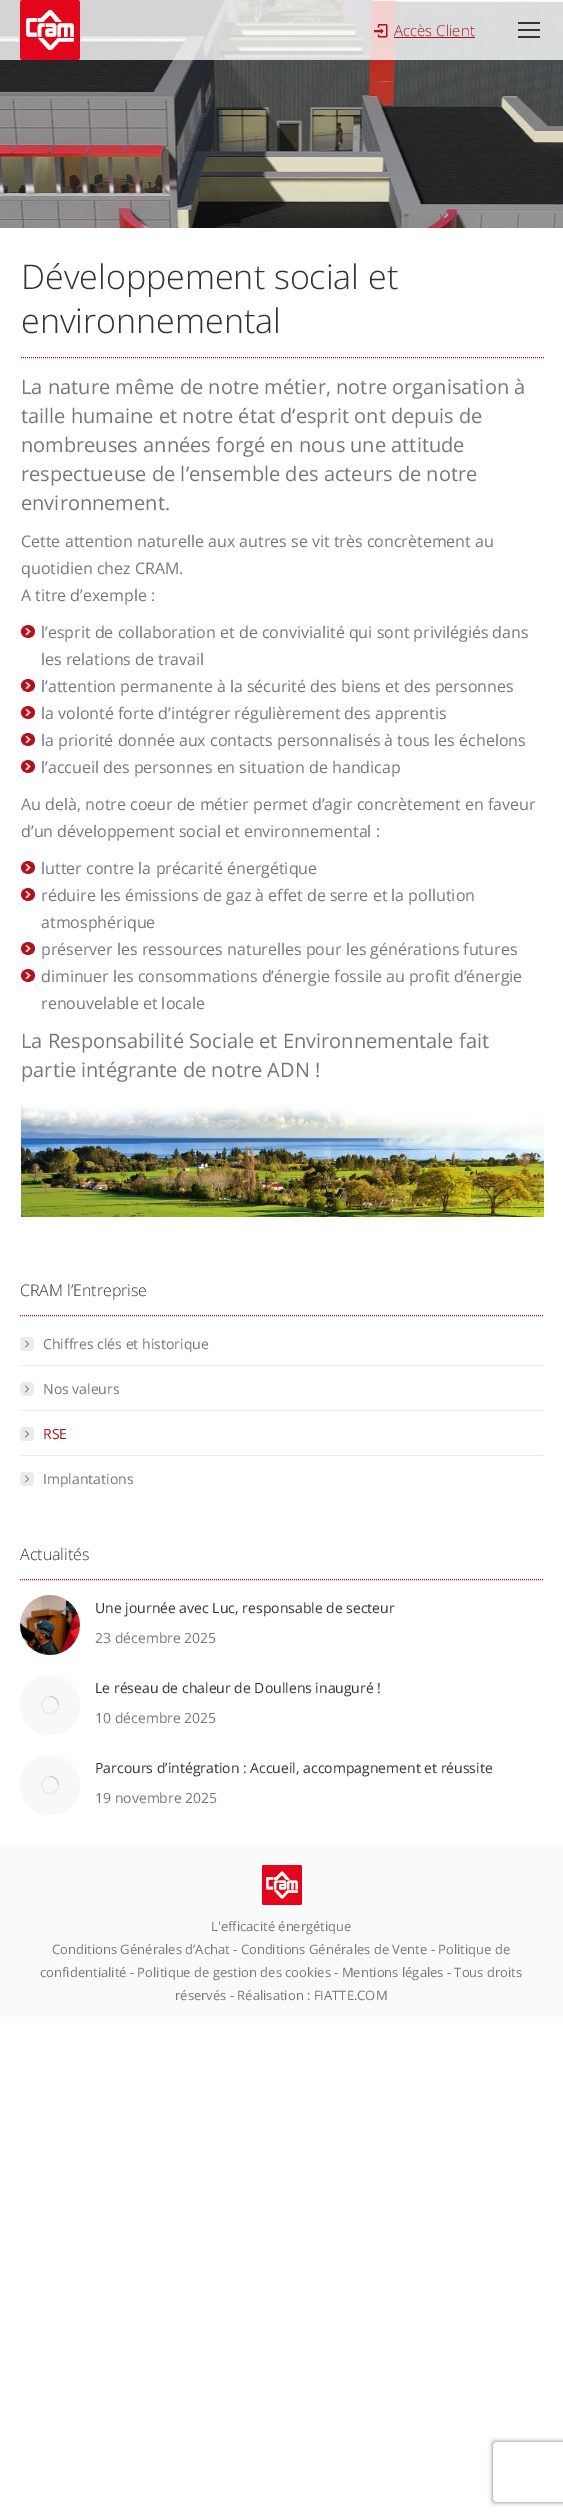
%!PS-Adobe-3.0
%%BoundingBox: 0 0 563 2516
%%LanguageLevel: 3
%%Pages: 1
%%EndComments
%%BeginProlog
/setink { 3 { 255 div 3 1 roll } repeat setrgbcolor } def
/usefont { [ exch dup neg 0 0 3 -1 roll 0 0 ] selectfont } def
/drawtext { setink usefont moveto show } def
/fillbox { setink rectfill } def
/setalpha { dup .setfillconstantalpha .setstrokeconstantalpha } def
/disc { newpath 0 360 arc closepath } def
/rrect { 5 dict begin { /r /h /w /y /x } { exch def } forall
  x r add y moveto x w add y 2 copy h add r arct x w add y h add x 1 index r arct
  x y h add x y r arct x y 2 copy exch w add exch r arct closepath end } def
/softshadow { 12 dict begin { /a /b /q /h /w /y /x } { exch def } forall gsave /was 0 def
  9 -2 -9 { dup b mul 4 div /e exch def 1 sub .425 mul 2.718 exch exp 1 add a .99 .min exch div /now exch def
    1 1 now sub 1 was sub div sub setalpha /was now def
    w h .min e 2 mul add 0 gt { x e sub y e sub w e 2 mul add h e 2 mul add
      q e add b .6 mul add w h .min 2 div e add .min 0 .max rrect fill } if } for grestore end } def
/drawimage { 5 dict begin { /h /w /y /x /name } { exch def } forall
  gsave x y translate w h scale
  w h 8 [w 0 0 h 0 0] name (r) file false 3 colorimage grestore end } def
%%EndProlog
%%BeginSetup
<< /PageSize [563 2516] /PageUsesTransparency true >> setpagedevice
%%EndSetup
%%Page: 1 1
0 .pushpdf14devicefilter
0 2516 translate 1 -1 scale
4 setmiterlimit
0 0 563 2516 255 255 255 fillbox
(assets/img1.rgb) 0 0 563 228 drawimage
0.8 setalpha
0 0 563 60 255 255 255 fillbox
1 setalpha
(assets/img2.rgb) 20 0 60 60 drawimage
(assets/img3.rgb) 374 24 14 14 drawimage
(Accès Client) 394 36 /OpenSans-Light 15 175 17 29 drawtext
394 37 81 1 175 17 29 fillbox
518 22 22 2 51 51 51 fillbox
518 29 22 2 51 51 51 fillbox
518 36 22 2 51 51 51 fillbox
175 17 29 setink
[1 1] 0 setdash
21 357.5 moveto 544 357.5 lineto stroke
(Développement social et) 21 289 /OpenSans-Light 34 51 51 51 drawtext
(environnemental) 21 333 /OpenSans-Light 34 51 51 51 drawtext
(La nature même de notre métier, notre organisation à) 21 394 /OpenSans-Regular 20 119 119 119 drawtext
(taille humaine et notre état d’esprit ont depuis de) 21 423 /OpenSans-Regular 20 119 119 119 drawtext
(nombreuses années forgé en nous une attitude) 21 452 /OpenSans-Regular 20 119 119 119 drawtext
(respectueuse de l’ensemble des acteurs de notre) 21 481 /OpenSans-Regular 20 119 119 119 drawtext
(environnement.) 21 510 /OpenSans-Regular 20 119 119 119 drawtext
(Cette attention naturelle aux autres se vit très concrètement au) 21 547 /OpenSans-Regular 16 119 119 119 drawtext
(quotidien chez CRAM.) 21 574 /OpenSans-Regular 16 119 119 119 drawtext
(A titre d’exemple :) 21 601 /OpenSans-Regular 16 119 119 119 drawtext
(assets/img4.rgb) 21 625 14 13 drawimage
(l’esprit de collaboration et de convivialité qui sont privilégiés dans) 41 638 /OpenSans-Regular 16 119 119 119 drawtext
(les relations de travail) 41 665 /OpenSans-Regular 16 119 119 119 drawtext
(assets/img4.rgb) 21 679 14 13 drawimage
(l’attention permanente à la sécurité des biens et des personnes) 41 692 /OpenSans-Regular 16 119 119 119 drawtext
(assets/img4.rgb) 21 706 14 13 drawimage
(la volonté forte d’intégrer régulièrement des apprentis) 41 719 /OpenSans-Regular 16 119 119 119 drawtext
(assets/img4.rgb) 21 733 14 13 drawimage
(la priorité donnée aux contacts personnalisés à tous les échelons) 41 746 /OpenSans-Regular 16 119 119 119 drawtext
(assets/img4.rgb) 21 760 14 13 drawimage
(l’accueil des personnes en situation de handicap) 41 773 /OpenSans-Regular 16 119 119 119 drawtext
(Au delà, notre coeur de métier permet d’agir concrètement en faveur) 21 810 /OpenSans-Regular 16 119 119 119 drawtext
(d’un développement social et environnemental :) 21 837 /OpenSans-Regular 16 119 119 119 drawtext
(assets/img4.rgb) 21 861 14 13 drawimage
(lutter contre la précarité énergétique) 41 874 /OpenSans-Regular 16 119 119 119 drawtext
(assets/img4.rgb) 21 888 14 13 drawimage
(réduire les émissions de gaz à effet de serre et la pollution) 41 901 /OpenSans-Regular 16 119 119 119 drawtext
(atmosphérique) 41 928 /OpenSans-Regular 16 119 119 119 drawtext
(assets/img4.rgb) 21 942 14 13 drawimage
(préserver les ressources naturelles pour les générations futures) 41 955 /OpenSans-Regular 16 119 119 119 drawtext
(assets/img4.rgb) 21 969 14 13 drawimage
(diminuer les consommations d’énergie fossile au profit d’énergie) 41 982 /OpenSans-Regular 16 119 119 119 drawtext
(renouvelable et locale) 41 1009 /OpenSans-Regular 16 119 119 119 drawtext
(La Responsabilité Sociale et Environnementale fait) 21 1048 /OpenSans-Regular 20 119 119 119 drawtext
(partie intégrante de notre ADN !) 21 1077 /OpenSans-Regular 20 119 119 119 drawtext
(assets/img5.rgb) 21 1104 523 113 drawimage
175 17 29 setink
20 1315.5 moveto 543 1315.5 lineto stroke
(CRAM l’Entreprise) 20 1296 /OpenSans-Light 16 51 51 51 drawtext
235 235 235 setink
20 1337 14 14 4 rrect fill
(Chiffres clés et historique) 43 1349 /OpenSans-Regular 14 119 119 119 drawtext
(assets/img6.rgb) 25 1340 4 8 drawimage
20 1365 523 1 235 235 235 fillbox
20 1382 14 14 4 rrect fill
(Nos valeurs) 43 1394 /OpenSans-Regular 14 119 119 119 drawtext
(assets/img6.rgb) 25 1385 4 8 drawimage
20 1410 523 1 235 235 235 fillbox
20 1427 14 14 4 rrect fill
(RSE) 43 1439 /OpenSans-Regular 14 175 17 29 drawtext
(assets/img6.rgb) 25 1430 4 8 drawimage
20 1455 523 1 235 235 235 fillbox
20 1472 14 14 4 rrect fill
(Implantations) 43 1484 /OpenSans-Regular 14 119 119 119 drawtext
(assets/img6.rgb) 25 1475 4 8 drawimage
175 17 29 setink
20 1579.5 moveto 543 1579.5 lineto stroke
(Actualités) 20 1560 /OpenSans-Light 16 51 51 51 drawtext
(assets/img7.rgb) 20 1595 60 60 drawimage
(Une journée avec Luc, responsable de secteur) 95 1613 /OpenSans-Regular 14 51 51 51 drawtext
(23 décembre 2025) 95 1643 /OpenSans-Regular 14 119 119 119 drawtext
248 248 248 setink
50 1705 30 disc fill
230 230 230 setink
0.9 setlinewidth
[] 0 setdash
50 1705 8.5 disc stroke
0.25 setalpha
119 119 119 setink
58.5 1705 moveto 58.5 1700.5 54.5 1696.5 50 1696.5 curveto stroke
1 setalpha
(Le réseau de chaleur de Doullens inauguré !) 95 1693 /OpenSans-Regular 14 51 51 51 drawtext
(10 décembre 2025) 95 1723 /OpenSans-Regular 14 119 119 119 drawtext
248 248 248 setink
50 1785 30 disc fill
230 230 230 setink
50 1785 8.5 disc stroke
0.25 setalpha
119 119 119 setink
58.5 1785 moveto 58.5 1780.5 54.5 1776.5 50 1776.5 curveto stroke
1 setalpha
(Parcours d’intégration : Accueil, accompagnement et réussite) 95 1773 /OpenSans-Regular 14 51 51 51 drawtext
(19 novembre 2025) 95 1803 /OpenSans-Regular 14 119 119 119 drawtext
0 1845 563 172 250 250 250 fillbox
(assets/img8.rgb) 262 1865 40 40 drawimage
(L'efficacité énergétique) 211 1931 /OpenSans-Regular 13 119 119 119 drawtext
(Conditions Générales d’Achat - Conditions Générales de Vente - Politique de) 52 1954 /OpenSans-Regular 13 119 119 119 drawtext
(confidentialité - Politique de gestion des cookies - Mentions légales - Tous droits) 40 1977 /OpenSans-Regular 13 119 119 119 drawtext
(réservés - Réalisation : FIATTE.COM) 175 2000 /OpenSans-Regular 13 119 119 119 drawtext
gsave
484 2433 moveto 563 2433 lineto 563 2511 lineto 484 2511 lineto closepath 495 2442 moveto 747 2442 lineto 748 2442 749 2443 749 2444 curveto 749 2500 lineto 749 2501 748 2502 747 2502 curveto 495 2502 lineto 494 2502 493 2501 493 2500 curveto 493 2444 lineto 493 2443 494 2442 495 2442 curveto closepath eoclip newpath
128 128 128 setink
493 2442 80 60 2 2.5 1 softshadow
grestore
.poppdf14devicefilter showpage
%%EOF
